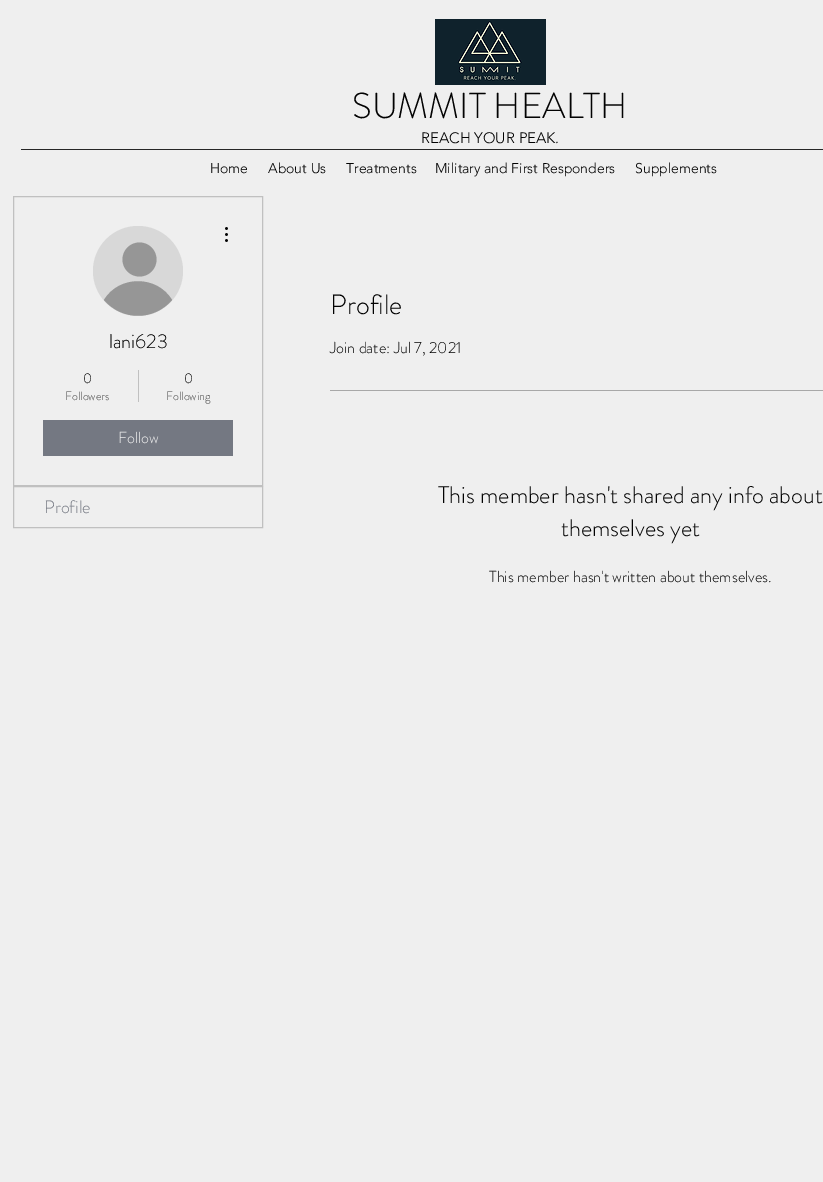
%!PS-Adobe-3.0
%%BoundingBox: 0 0 823 1182
%%LanguageLevel: 3
%%Pages: 1
%%EndComments
%%BeginProlog
/setink { 3 { 255 div 3 1 roll } repeat setrgbcolor } def
/usefont { [ exch dup neg 0 0 3 -1 roll 0 0 ] selectfont } def
/drawtext { setink usefont moveto show } def
/fillbox { setink rectfill } def
/disc { newpath 0 360 arc closepath } def
/drawimage { 5 dict begin { /h /w /y /x /name } { exch def } forall
  gsave x y translate w h scale
  w h 8 [w 0 0 h 0 0] name (r) file false 3 colorimage grestore end } def
%%EndProlog
%%BeginSetup
<< /PageSize [823 1182] >> setpagedevice
%%EndSetup
%%Page: 1 1
0 1182 translate 1 -1 scale
4 setmiterlimit
0 0 823 1182 239 239 239 fillbox
(assets/img1.rgb) 435 19 111 66 drawimage
(SUMMIT HEALTH) 352 118 /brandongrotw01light-Light 36 2 2 2 drawtext
(REACH YOUR PEAK.) 421 143 /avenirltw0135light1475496-Light 15 2 2 2 drawtext
21 149 802 1 38 38 38 fillbox
(Home) 210 173 /avenirltw0135light1475496-Light 14 2 2 2 drawtext
(About Us) 268 173 /avenirltw0135light1475496-Light 14 2 2 2 drawtext
(Treatments) 346 173 /avenirltw0135light1475496-Light 14 2 2 2 drawtext
(Military and First Responders) 435 173 /avenirltw0135light1475496-Light 14 2 2 2 drawtext
(Supplements) 635 173 /avenirltw0135light1475496-Light 14 2 2 2 drawtext
192 192 192 setink
13.5 196.5 249 289 rectstroke
216 216 216 setink
138 271 45 disc fill
150 150 150 setink
139.5 259.5 17 disc fill
172 300 moveto 154 321 122 321 104 300 curveto 119 275 157 275 172 300 curveto closepath fill
(assets/img2.rgb) 225 227 3 15 drawimage
(lani623) 109 348 /brandongrotw01light-Light 20 2 2 2 drawtext
(0) 83 383 /brandongrotw01light-Light 14 2 2 2 drawtext
(Followers) 65 400 /brandongrotw01light-Light 12 73 73 73 drawtext
138 370 1 32 192 192 192 fillbox
(0) 184 383 /brandongrotw01light-Light 14 2 2 2 drawtext
(Following) 166 400 /brandongrotw01light-Light 12 73 73 73 drawtext
43 420 190 36 116 120 130 fillbox
(Follow) 118 443 /brandongrotw01light-Light 16 239 239 239 drawtext
192 192 192 setink
13.5 486.5 249 41 rectstroke
(Profile) 44 513 /brandongrotw01light-Light 18 116 120 130 drawtext
(Profile) 330 314 /brandongrotw01light-Light 28 2 2 2 drawtext
(Join date: Jul 7, 2021) 330 353 /brandongrotw01light-Light 16 2 2 2 drawtext
330 390 493 1 168 168 168 fillbox
(This member hasn't shared any info about) 438 503 /brandongrotw01light-Light 24 2 2 2 drawtext
(themselves yet) 561 536 /brandongrotw01light-Light 24 2 2 2 drawtext
(This member hasn't written about themselves.) 489 582 /brandongrotw01light-Light 16 2 2 2 drawtext
showpage
%%EOF
